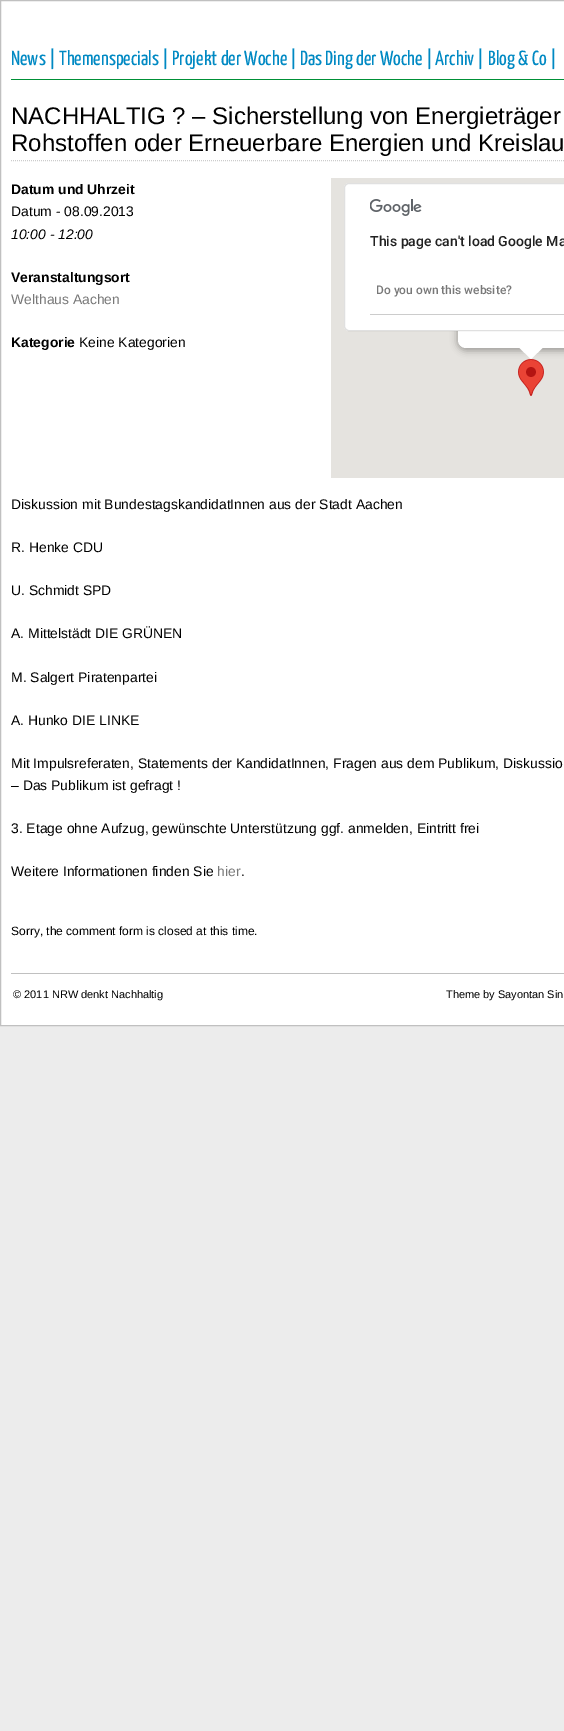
%!PS-Adobe-3.0
%%BoundingBox: 0 0 564 1731
%%LanguageLevel: 3
%%Pages: 1
%%EndComments
%%BeginProlog
/setink { 3 { 255 div 3 1 roll } repeat setrgbcolor } def
/usefont { [ exch dup neg 0 0 3 -1 roll 0 0 ] selectfont } def
/drawtext { setink usefont moveto show } def
/fillbox { setink rectfill } def
/setalpha { dup .setfillconstantalpha .setstrokeconstantalpha } def
/rrect { 5 dict begin { /r /h /w /y /x } { exch def } forall
  x r add y moveto x w add y 2 copy h add r arct x w add y h add x 1 index r arct
  x y h add x y r arct x y 2 copy exch w add exch r arct closepath end } def
/softshadow { 12 dict begin { /a /b /q /h /w /y /x } { exch def } forall gsave /was 0 def
  9 -2 -9 { dup b mul 4 div /e exch def 1 sub .425 mul 2.718 exch exp 1 add a .99 .min exch div /now exch def
    1 1 now sub 1 was sub div sub setalpha /was now def
    w h .min e 2 mul add 0 gt { x e sub y e sub w e 2 mul add h e 2 mul add
      q e add b .6 mul add w h .min 2 div e add .min 0 .max rrect fill } if } for grestore end } def
/drawimage { 5 dict begin { /h /w /y /x /name } { exch def } forall
  gsave x y translate w h scale
  w h 8 [w 0 0 h 0 0] name (r) file false 3 colorimage grestore end } def
%%EndProlog
%%BeginSetup
<< /PageSize [564 1731] /PageUsesTransparency true >> setpagedevice
%%EndSetup
%%Page: 1 1
0 .pushpdf14devicefilter
0 1731 translate 1 -1 scale
4 setmiterlimit
0 0 564 1731 236 236 236 fillbox
255 255 255 setink
0.5 0.5 moveto 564.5 0.5 lineto 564.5 1025.5 lineto 0.5 1025.5 lineto closepath gsave fill grestore
192 192 192 setink
stroke
11 79 553 1 0 144 55 fillbox
(News |) 11 65 /YanoneKaffeesatz-ExtraLight 20.5 0 137 195 drawtext
(Themenspecials |) 59 65 /YanoneKaffeesatz-ExtraLight 20.5 0 137 195 drawtext
(Projekt der Woche |) 172 65 /YanoneKaffeesatz-ExtraLight 20.5 0 137 195 drawtext
(Das Ding der Woche |) 300 65 /YanoneKaffeesatz-ExtraLight 20.5 0 137 195 drawtext
(Archiv |) 435 65 /YanoneKaffeesatz-ExtraLight 20.5 0 137 195 drawtext
(Blog & Co |) 488 65 /YanoneKaffeesatz-ExtraLight 20.5 0 137 195 drawtext
204 204 204 setink
[1 1] 0 setdash
11 160.5 moveto 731 160.5 lineto stroke
(NACHHALTIG ? – Sicherstellung von Energieträger) 11 124 /LiberationSans-Regular 24 0 0 0 drawtext
(Rohstoffen oder Erneuerbare Energien und Kreislau) 11 151 /LiberationSans-Regular 24 0 0 0 drawtext
(Datum und Uhrzeit) 11 194 /LiberationSans-Bold 13.9 0 0 0 drawtext
(Datum - 08.09.2013) 11 216 /LiberationSans-Regular 13.9 0 0 0 drawtext
(10:00 - 12:00) 11 239 /LiberationSans-Italic 13.9 0 0 0 drawtext
(Veranstaltungsort) 11 282 /LiberationSans-Bold 13.9 0 0 0 drawtext
(Welthaus Aachen) 11 304 /LiberationSans-Regular 13.9 120 120 120 drawtext
331 178 233 300 229 227 223 fillbox
(assets/img1.rgb) 518 359 26 37 drawimage
0 0 0 setink
457 239 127 112 9 3.5 0.3 softshadow
255 255 255 setink
458 238 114 110 8 rrect fill
519 347.5 moveto 519 347 lineto 543.5 347 lineto 531 359 lineto closepath fill
344 183 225 148 5 rrect fill
0.12 setalpha
0 0 0 setink
[] 0 setdash
344.5 183.5 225 147 4.5 rrect stroke
1 setalpha
(assets/img2.rgb) 370 199 52 17 drawimage
(This page can't load Google Ma) 370 246 /Roboto-Medium 14 33 33 33 drawtext
370 314 194 1 204 204 204 fillbox
(Do you own this website?) 376 294 /Roboto-Medium 12 120 120 120 drawtext
(Kategorie) 11 347 /LiberationSans-Bold 13.9 0 0 0 drawtext
(Keine Kategorien) 79 347 /LiberationSans-Regular 13.9 0 0 0 drawtext
(Diskussion mit BundestagskandidatInnen aus der Stadt Aachen) 11 509 /LiberationSans-Regular 13.9 0 0 0 drawtext
(R. Henke CDU) 11 552 /LiberationSans-Regular 13.9 0 0 0 drawtext
(U. Schmidt SPD) 11 595 /LiberationSans-Regular 13.9 0 0 0 drawtext
(A. Mittelstädt DIE GRÜNEN) 11 638 /LiberationSans-Regular 13.9 0 0 0 drawtext
(M. Salgert Piratenpartei) 11 682 /LiberationSans-Regular 13.9 0 0 0 drawtext
(A. Hunko DIE LINKE) 11 725 /LiberationSans-Regular 13.9 0 0 0 drawtext
(Mit Impulsreferaten, Statements der KandidatInnen, Fragen aus dem Publikum, Diskussio) 11 768 /LiberationSans-Regular 13.9 0 0 0 drawtext
(– Das Publikum ist gefragt !) 11 790 /LiberationSans-Regular 13.9 0 0 0 drawtext
(3. Etage ohne Aufzug, gewünschte Unterstützung ggf. anmelden, Eintritt frei) 11 833 /LiberationSans-Regular 13.9 0 0 0 drawtext
(Weitere Informationen finden Sie) 11 876 /LiberationSans-Regular 13.9 0 0 0 drawtext
(hier) 217 876 /LiberationSans-Regular 13.9 120 120 120 drawtext
(.) 241 876 /LiberationSans-Regular 13.9 0 0 0 drawtext
(Sorry, the comment form is closed at this time.) 11 935 /LiberationSans-Regular 12 0 0 0 drawtext
11 973 553 1 192 192 192 fillbox
(© 2011 NRW denkt Nachhaltig) 13 998 /LiberationSans-Regular 11 0 0 0 drawtext
(Theme by Sayontan Sin) 446 998 /LiberationSans-Regular 11 0 0 0 drawtext
.poppdf14devicefilter showpage
%%EOF
